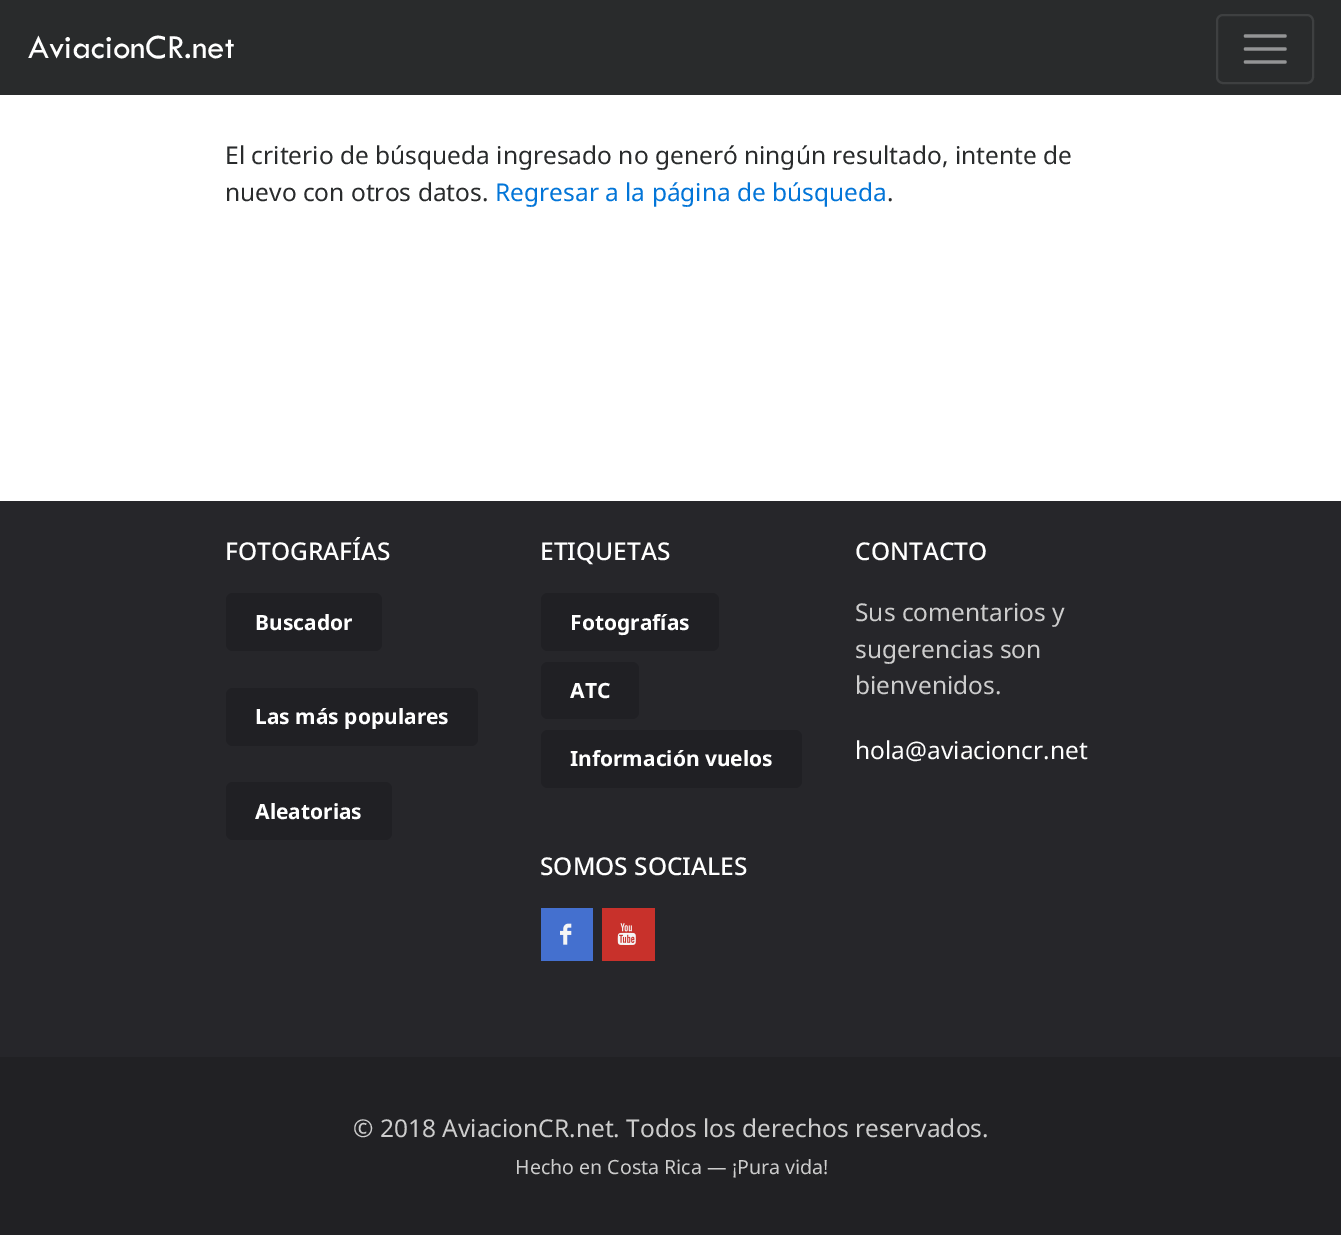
%!PS-Adobe-3.0
%%BoundingBox: 0 0 1341 1235
%%LanguageLevel: 3
%%Pages: 1
%%EndComments
%%BeginProlog
/setink { 3 { 255 div 3 1 roll } repeat setrgbcolor } def
/usefont { [ exch dup neg 0 0 3 -1 roll 0 0 ] selectfont } def
/drawtext { setink usefont moveto show } def
/fillbox { setink rectfill } def
/rrect { 5 dict begin { /r /h /w /y /x } { exch def } forall
  x r add y moveto x w add y 2 copy h add r arct x w add y h add x 1 index r arct
  x y h add x y r arct x y 2 copy exch w add exch r arct closepath end } def
/drawimage { 5 dict begin { /h /w /y /x /name } { exch def } forall
  gsave x y translate w h scale
  w h 8 [w 0 0 h 0 0] name (r) file false 3 colorimage grestore end } def
%%EndProlog
%%BeginSetup
<< /PageSize [1341 1235] >> setpagedevice
%%EndSetup
%%Page: 1 1
0 1235 translate 1 -1 scale
4 setmiterlimit
0 0 1341 1235 255 255 255 fillbox
0 0 1341 95 41 43 44 fillbox
(AviacionCR.net) 28 58 /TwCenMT-Regular 35 255 255 255 drawtext
62 64 65 setink
2 setlinewidth
1217 15 96 68 6 rrect stroke
148 149 150 setink
3.3 setlinewidth
1 setlinecap
1245.5 36 moveto 1285 36 lineto 1245.5 49 moveto 1285 49 lineto 1245.5 62 moveto 1285 62 lineto stroke
(El criterio de búsqueda ingresado no generó ningún resultado, intente de) 225 164 /NotoSans-Regular 24.5 41 43 44 drawtext
(nuevo con otros datos.) 225 201 /NotoSans-Regular 24.5 41 43 44 drawtext
(Regresar a la página de búsqueda) 495 201 /NotoSans-Regular 24.5 2 117 216 drawtext
(.) 887 201 /NotoSans-Regular 24.5 41 43 44 drawtext
0 501 1341 556 38 38 42 fillbox
(FOTOGRAFÍAS) 225 560 /NotoSans-Medium 24.5 255 255 255 drawtext
32 32 36 setink
226 593 156 58 7 rrect fill
(Buscador) 255 630 /NotoSans-Bold 21 255 255 255 drawtext
32 32 36 setink
226 688 252 58 7 rrect fill
(Las más populares) 255 724 /NotoSans-Bold 21 255 255 255 drawtext
32 32 36 setink
226 782 166 58 7 rrect fill
(Aleatorias) 255 819 /NotoSans-Bold 21 255 255 255 drawtext
(ETIQUETAS) 540 560 /NotoSans-Medium 24.5 255 255 255 drawtext
32 32 36 setink
541 593 178 58 7 rrect fill
(Fotografías) 570 630 /NotoSans-Bold 21 255 255 255 drawtext
32 32 36 setink
541 662 98 57 7 rrect fill
(ATC) 570 698 /NotoSans-Bold 21 255 255 255 drawtext
32 32 36 setink
541 730 261 58 7 rrect fill
(Información vuelos) 570 766 /NotoSans-Bold 21 255 255 255 drawtext
(SOMOS SOCIALES) 540 875 /NotoSans-Medium 24.5 255 255 255 drawtext
541 908 52 53 68 112 207 fillbox
(assets/img1.rgb) 560 923 12 22 drawimage
602 908 53 53 200 49 43 fillbox
(assets/img2.rgb) 617 923 19 22 drawimage
(CONTACTO) 855 560 /NotoSans-Medium 24.5 255 255 255 drawtext
(Sus comentarios y) 855 621 /NotoSans-Regular 24.5 205 205 205 drawtext
(sugerencias son) 855 658 /NotoSans-Regular 24.5 205 205 205 drawtext
(bienvenidos.) 855 694 /NotoSans-Regular 24.5 205 205 205 drawtext
(hola@aviacioncr.net) 855 759 /NotoSans-Regular 24.5 255 255 255 drawtext
0 1057 1341 178 33 33 36 fillbox
(© 2018 AviacionCR.net. Todos los derechos reservados.) 353 1137 /NotoSans-Regular 24.5 205 205 205 drawtext
(Hecho en Costa Rica — ¡Pura vida!) 515 1174 /NotoSans-Regular 19.6 205 205 205 drawtext
showpage
%%EOF
